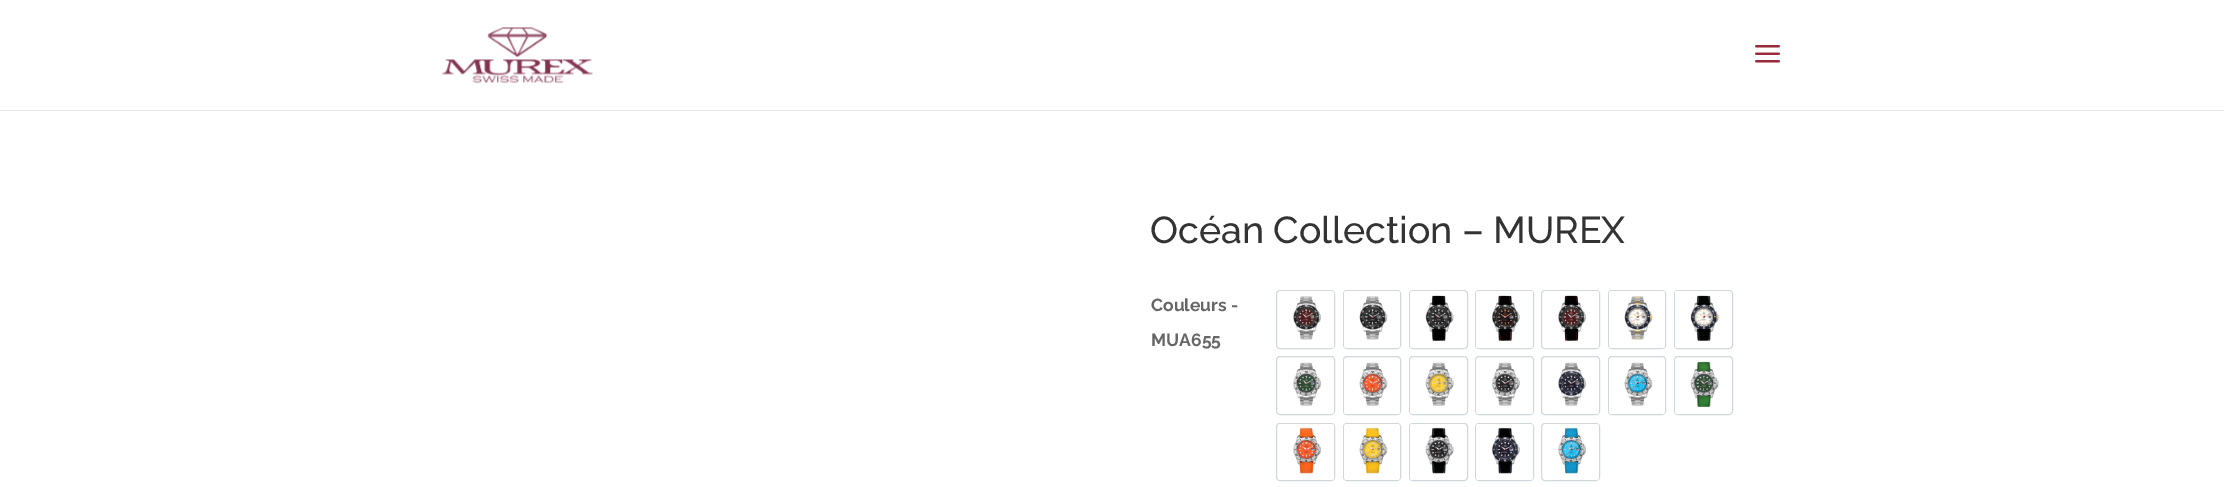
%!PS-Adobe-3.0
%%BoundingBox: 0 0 2224 487
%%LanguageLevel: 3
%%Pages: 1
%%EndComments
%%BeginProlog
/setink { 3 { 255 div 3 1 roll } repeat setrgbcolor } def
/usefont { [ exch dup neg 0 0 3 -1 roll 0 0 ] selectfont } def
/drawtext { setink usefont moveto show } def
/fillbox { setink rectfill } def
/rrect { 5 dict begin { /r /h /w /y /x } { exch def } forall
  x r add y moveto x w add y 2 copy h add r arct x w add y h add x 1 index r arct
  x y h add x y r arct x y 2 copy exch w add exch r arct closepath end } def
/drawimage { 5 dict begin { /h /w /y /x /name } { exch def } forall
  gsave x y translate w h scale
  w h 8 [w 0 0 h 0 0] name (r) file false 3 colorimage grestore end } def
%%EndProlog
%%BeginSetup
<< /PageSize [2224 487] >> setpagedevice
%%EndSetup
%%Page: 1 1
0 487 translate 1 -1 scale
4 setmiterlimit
0 0 2224 487 255 255 255 fillbox
0 110 2224 1 230 230 230 fillbox
(assets/img1.rgb) 442 27 152 56 drawimage
(assets/img2.rgb) 1755 45 25 18 drawimage
(Océan Collection – MUREX) 1150 243 /Raleway-Medium 37.5 51 51 51 drawtext
(Couleurs -) 1151 311 /Raleway-Bold 17.5 102 102 102 drawtext
(MUA655) 1151 346 /Raleway-Bold 17.5 102 102 102 drawtext
209 215 218 setink
1276.5 290.5 58 58 3.5 rrect stroke
255 255 255 setink
1278 291 56 57 2.5 rrect fill
(assets/img3.rgb) 1293 296 28 44 drawimage
209 215 218 setink
1343.5 290.5 57 58 3.5 rrect stroke
255 255 255 setink
1344 291 56 57 2.5 rrect fill
(assets/img4.rgb) 1359 296 29 44 drawimage
209 215 218 setink
1409.5 290.5 58 58 3.5 rrect stroke
255 255 255 setink
1410 291 56 57 2.5 rrect fill
(assets/img5.rgb) 1425 295 29 46 drawimage
209 215 218 setink
1475.5 290.5 58 58 3.5 rrect stroke
255 255 255 setink
1476 291 57 57 2.5 rrect fill
(assets/img6.rgb) 1491 294 29 47 drawimage
209 215 218 setink
1541.5 290.5 58 58 3.5 rrect stroke
255 255 255 setink
1543 291 56 57 2.5 rrect fill
(assets/img7.rgb) 1558 294 28 49 drawimage
209 215 218 setink
1608.5 290.5 57 58 3.5 rrect stroke
255 255 255 setink
1609 291 56 57 2.5 rrect fill
(assets/img8.rgb) 1624 295 29 45 drawimage
209 215 218 setink
1674.5 290.5 58 58 3.5 rrect stroke
255 255 255 setink
1675 291 56 57 2.5 rrect fill
(assets/img9.rgb) 1690 295 29 46 drawimage
209 215 218 setink
1276.5 356.5 58 58 3.5 rrect stroke
255 255 255 setink
1278 358 56 56 2.5 rrect fill
(assets/img10.rgb) 1293 362 28 44 drawimage
209 215 218 setink
1343.5 356.5 57 58 3.5 rrect stroke
255 255 255 setink
1344 358 56 56 2.5 rrect fill
(assets/img11.rgb) 1359 362 29 44 drawimage
209 215 218 setink
1409.5 356.5 58 58 3.5 rrect stroke
255 255 255 setink
1410 358 56 56 2.5 rrect fill
(assets/img12.rgb) 1425 362 29 44 drawimage
209 215 218 setink
1475.5 356.5 58 58 3.5 rrect stroke
255 255 255 setink
1476 358 57 56 2.5 rrect fill
(assets/img13.rgb) 1491 362 29 44 drawimage
209 215 218 setink
1541.5 356.5 58 58 3.5 rrect stroke
255 255 255 setink
1543 358 56 56 2.5 rrect fill
(assets/img14.rgb) 1558 362 28 44 drawimage
209 215 218 setink
1608.5 356.5 57 58 3.5 rrect stroke
255 255 255 setink
1609 358 56 56 2.5 rrect fill
(assets/img15.rgb) 1624 362 29 44 drawimage
209 215 218 setink
1674.5 356.5 58 58 3.5 rrect stroke
255 255 255 setink
1675 358 56 56 2.5 rrect fill
(assets/img16.rgb) 1690 360 29 47 drawimage
209 215 218 setink
1276.5 423.5 58 57 3.5 rrect stroke
255 255 255 setink
1278 424 56 56 2.5 rrect fill
(assets/img17.rgb) 1293 427 28 48 drawimage
209 215 218 setink
1343.5 423.5 57 57 3.5 rrect stroke
255 255 255 setink
1344 424 56 56 2.5 rrect fill
(assets/img18.rgb) 1359 427 29 48 drawimage
209 215 218 setink
1409.5 423.5 58 57 3.5 rrect stroke
255 255 255 setink
1410 424 56 56 2.5 rrect fill
(assets/img19.rgb) 1425 427 29 47 drawimage
209 215 218 setink
1475.5 423.5 58 57 3.5 rrect stroke
255 255 255 setink
1476 424 57 56 2.5 rrect fill
(assets/img20.rgb) 1491 427 29 48 drawimage
209 215 218 setink
1541.5 423.5 58 57 3.5 rrect stroke
255 255 255 setink
1543 424 56 56 2.5 rrect fill
(assets/img21.rgb) 1558 427 28 48 drawimage
showpage
%%EOF
